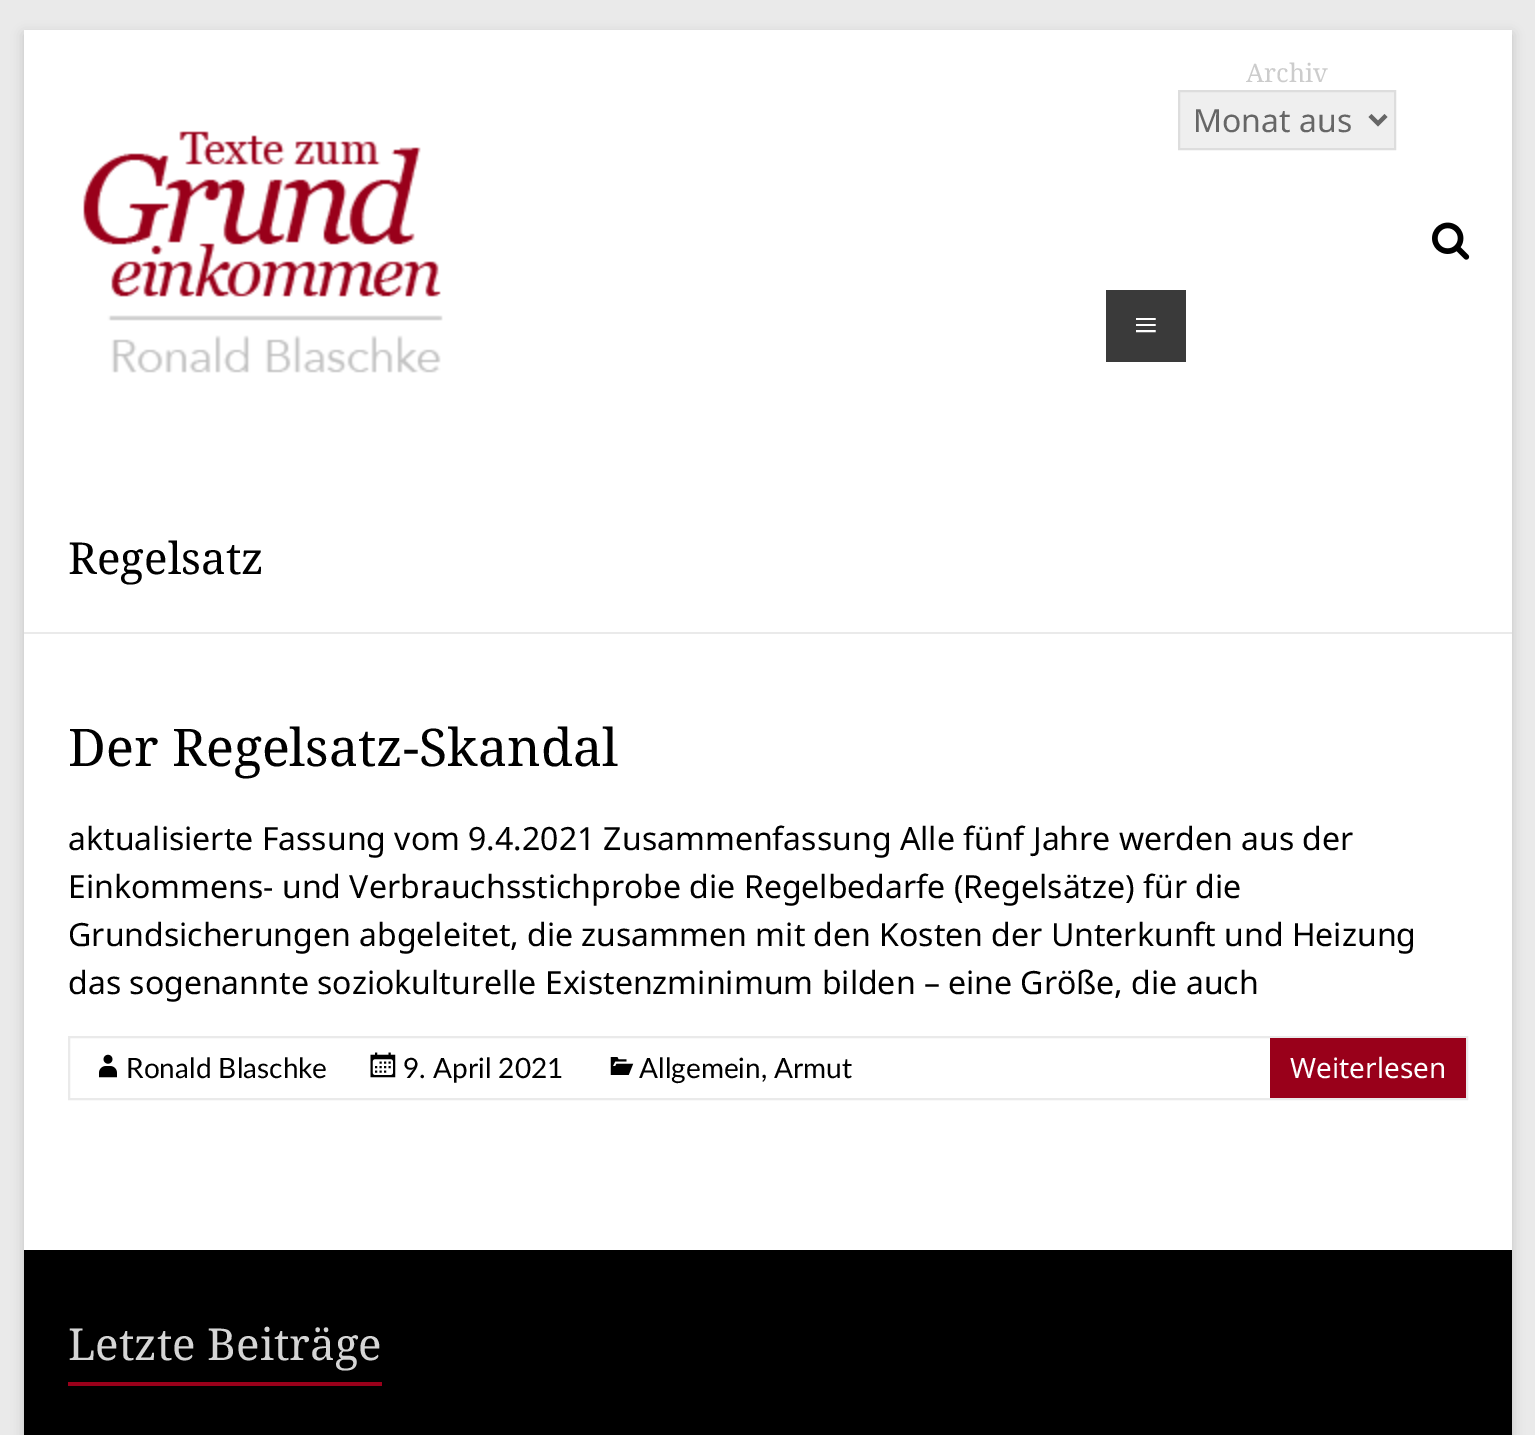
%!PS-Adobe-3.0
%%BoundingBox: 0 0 1535 1435
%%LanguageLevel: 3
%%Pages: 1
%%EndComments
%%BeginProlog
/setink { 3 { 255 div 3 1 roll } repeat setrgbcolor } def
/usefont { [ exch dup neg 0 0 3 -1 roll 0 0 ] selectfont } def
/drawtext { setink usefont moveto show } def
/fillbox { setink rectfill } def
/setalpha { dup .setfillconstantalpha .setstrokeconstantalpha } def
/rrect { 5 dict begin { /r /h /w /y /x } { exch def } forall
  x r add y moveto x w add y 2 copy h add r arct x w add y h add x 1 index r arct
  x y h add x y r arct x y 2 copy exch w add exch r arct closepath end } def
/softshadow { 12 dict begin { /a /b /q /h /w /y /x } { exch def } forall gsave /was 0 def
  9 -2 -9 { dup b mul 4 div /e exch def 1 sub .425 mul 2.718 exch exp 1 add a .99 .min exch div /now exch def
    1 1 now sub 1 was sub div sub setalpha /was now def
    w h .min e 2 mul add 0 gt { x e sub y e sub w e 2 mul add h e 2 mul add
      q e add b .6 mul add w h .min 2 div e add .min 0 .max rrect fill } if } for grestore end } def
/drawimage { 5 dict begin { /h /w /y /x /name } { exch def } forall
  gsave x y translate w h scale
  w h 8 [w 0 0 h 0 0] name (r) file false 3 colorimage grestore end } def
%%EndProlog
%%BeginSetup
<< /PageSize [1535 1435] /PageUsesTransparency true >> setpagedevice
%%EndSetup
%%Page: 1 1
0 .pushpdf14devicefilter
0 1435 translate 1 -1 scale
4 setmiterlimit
0 0 1535 1435 234 234 234 fillbox
100 100 100 setink
24 34 1488 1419 0 6 0.3 softshadow
24 30 1488 1220 255 255 255 fillbox
(assets/img1.rgb) 83 131 360 242 drawimage
(Archiv) 1246 82 /NotoSerif-Regular 25.5 204 204 204 drawtext
239 239 239 setink
1179 91 moveto 1395 91 lineto 1395 149 lineto 1179 149 lineto closepath gsave fill grestore
221 221 221 setink
2 setlinewidth
stroke
102 102 102 setink
4 setlinewidth
1370 115.5 moveto 1378 123.5 lineto 1386 115.5 lineto stroke
(Monat aus) 1193 132 /NotoSans-Regular 32 102 102 102 drawtext
(assets/img2.rgb) 1432 222 38 38 drawimage
1106 290 80 72 58 58 58 fillbox
(≡) 1134 339 /LiberationSerif-Regular 42 255 255 255 drawtext
24 632 1488 2 234 234 234 fillbox
(Regelsatz) 68 574 /NotoSerif-Regular 44 0 0 0 drawtext
(Der Regelsatz-Skandal) 68 766 /NotoSerif-Regular 52 0 0 0 drawtext
(aktualisierte Fassung vom 9.4.2021 Zusammenfassung Alle fünf Jahre werden aus der) 68 850 /NotoSans-Regular 32 0 0 0 drawtext
(Einkommens- und Verbrauchsstichprobe die Regelbedarfe \(Regelsätze\) für die) 68 898 /NotoSans-Regular 32 0 0 0 drawtext
(Grundsicherungen abgeleitet, die zusammen mit den Kosten der Unterkunft und Heizung) 68 946 /NotoSans-Regular 32 0 0 0 drawtext
(das sogenannte soziokulturelle Existenzminimum bilden – eine Größe, die auch) 68 994 /NotoSans-Regular 32 0 0 0 drawtext
234 234 234 setink
2 setlinewidth
69 1037 1398 62 rectstroke
(assets/img3.rgb) 99 1054 18 24 drawimage
(Ronald Blaschke) 126 1078 /Lato-Regular 28 0 0 0 drawtext
(assets/img4.rgb) 370 1052 26 26 drawimage
(9. April 2021) 403 1078 /Lato-Regular 28 0 0 0 drawtext
(assets/img5.rgb) 610 1057 24 18 drawimage
(Allgemein, Armut) 639 1078 /Lato-Regular 28 0 0 0 drawtext
1270 1038 196 60 153 0 26 fillbox
(Weiterlesen) 1290 1078 /NotoSans-Regular 28 255 255 255 drawtext
24 1250 1488 185 0 0 0 fillbox
(Letzte Beiträge) 68 1360 /NotoSerif-Regular 44 213 213 213 drawtext
68 1382 314 4 153 0 26 fillbox
.poppdf14devicefilter showpage
%%EOF
